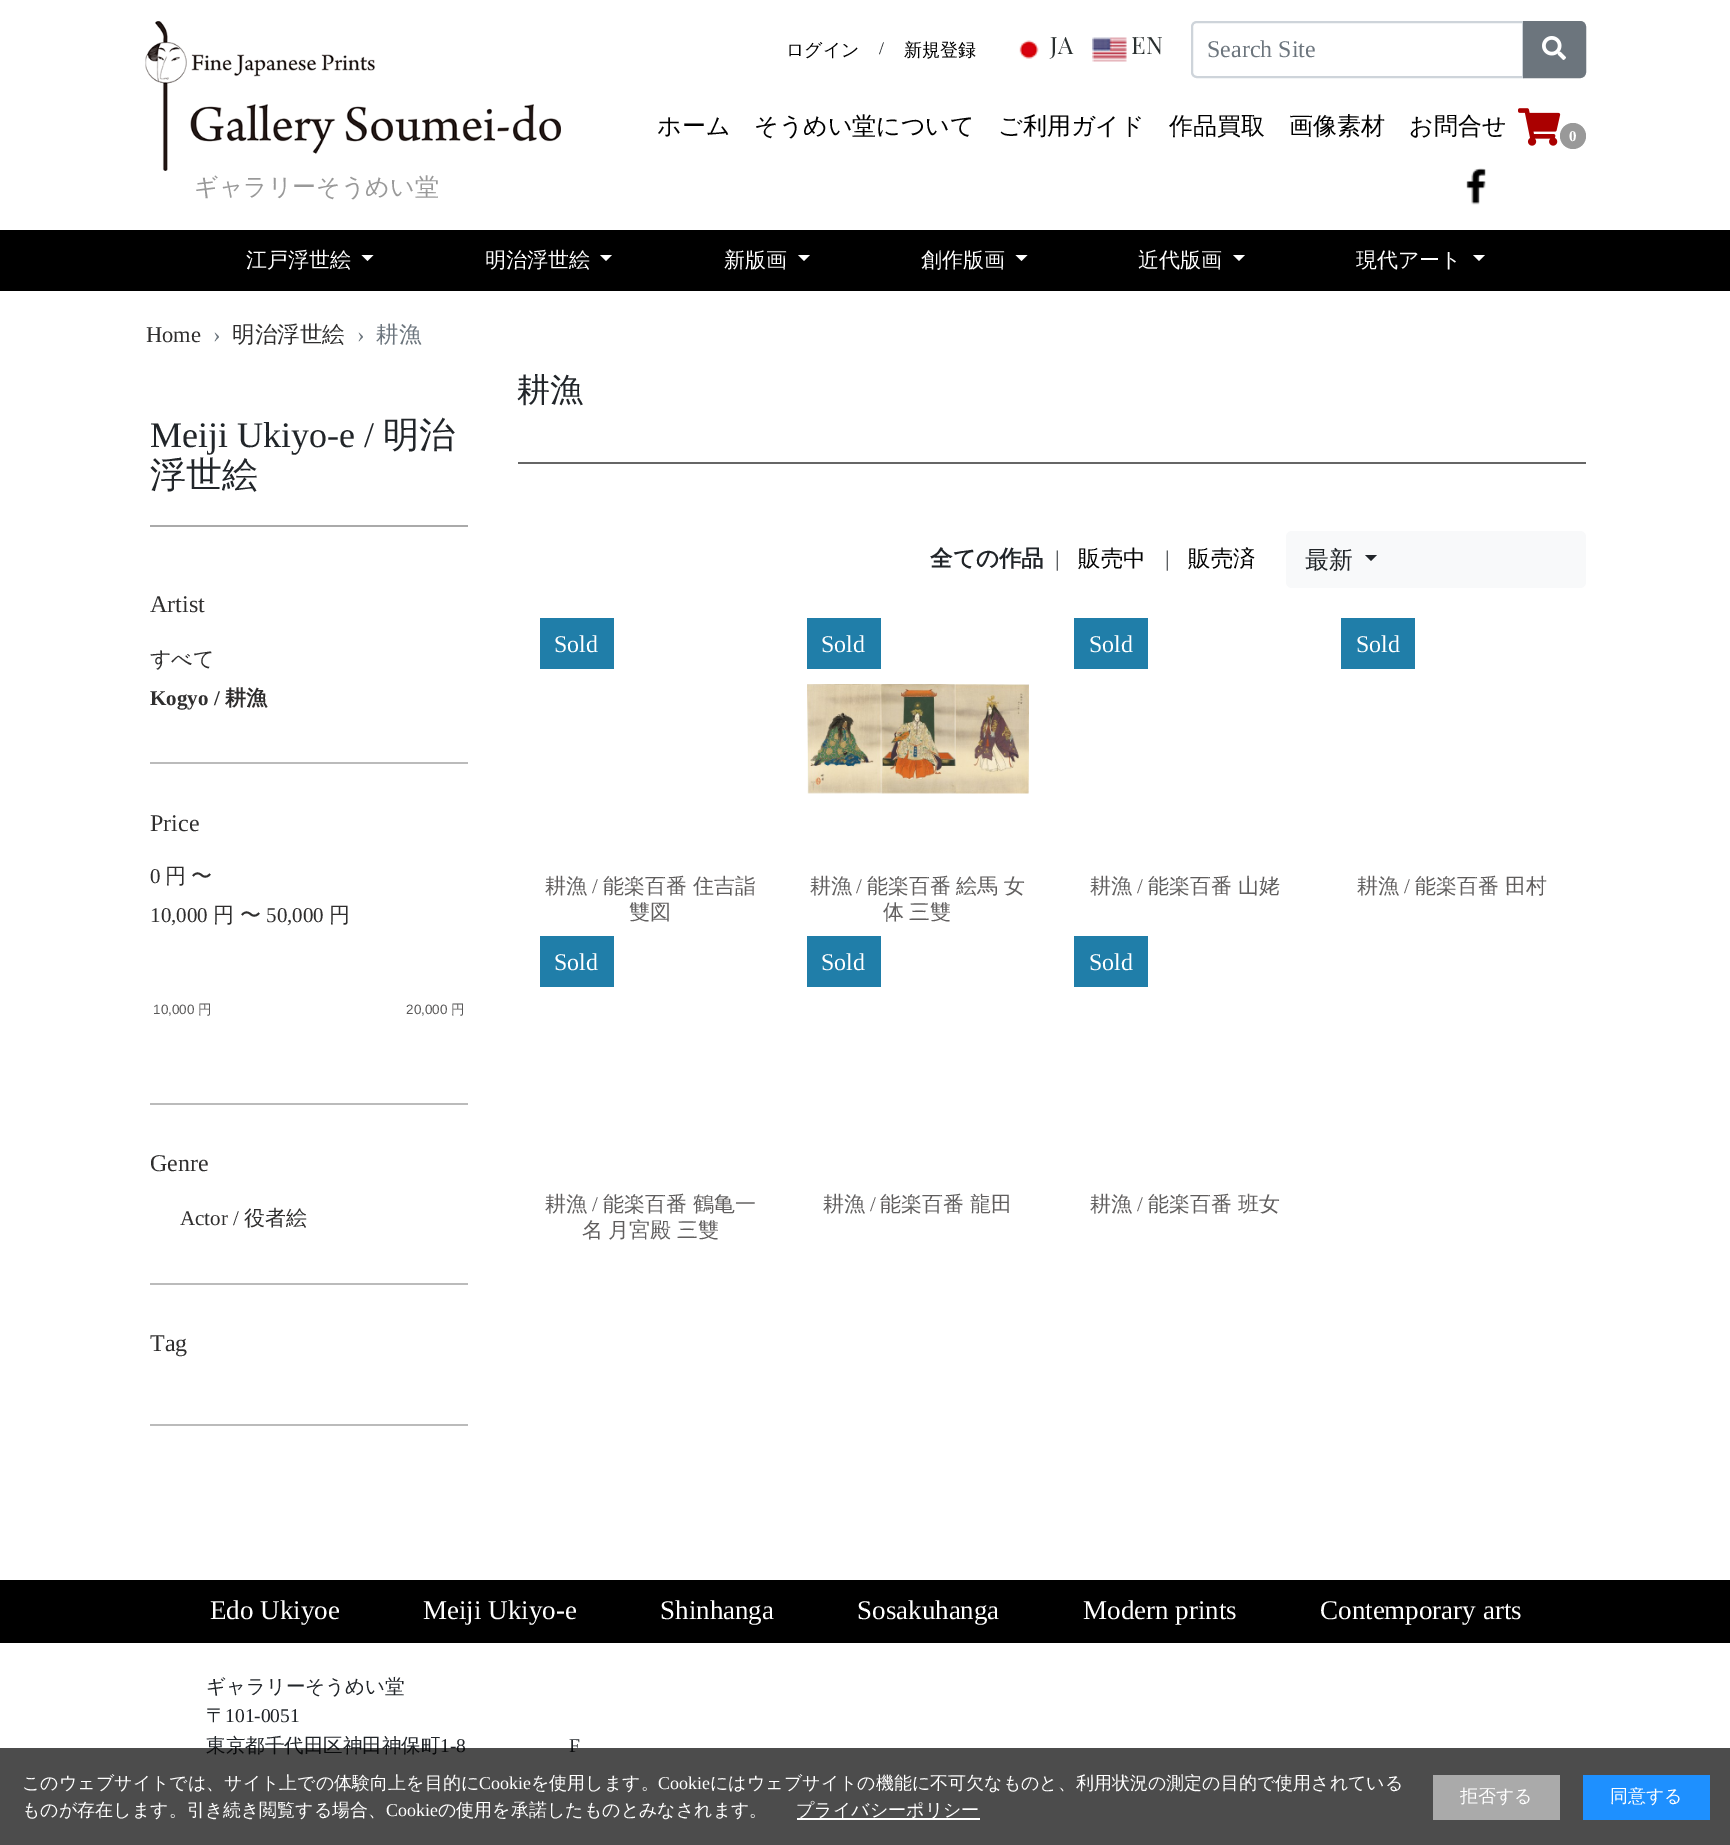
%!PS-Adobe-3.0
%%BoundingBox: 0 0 1730 1845
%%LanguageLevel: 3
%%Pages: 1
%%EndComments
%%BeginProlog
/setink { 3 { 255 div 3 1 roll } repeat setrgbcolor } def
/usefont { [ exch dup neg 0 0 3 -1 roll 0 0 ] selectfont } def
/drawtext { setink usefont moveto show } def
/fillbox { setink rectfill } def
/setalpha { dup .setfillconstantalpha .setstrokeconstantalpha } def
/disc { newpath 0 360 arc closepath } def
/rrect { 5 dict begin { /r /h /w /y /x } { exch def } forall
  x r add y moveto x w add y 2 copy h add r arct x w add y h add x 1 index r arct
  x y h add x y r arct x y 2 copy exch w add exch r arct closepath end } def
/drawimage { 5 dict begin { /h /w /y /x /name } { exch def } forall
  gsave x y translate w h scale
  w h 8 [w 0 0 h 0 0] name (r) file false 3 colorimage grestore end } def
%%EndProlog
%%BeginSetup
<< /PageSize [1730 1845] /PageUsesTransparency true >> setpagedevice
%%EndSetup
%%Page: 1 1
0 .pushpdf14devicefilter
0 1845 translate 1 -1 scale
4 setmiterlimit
0 0 1730 1845 255 255 255 fillbox
(ログイン) 786 56 /WenQuanYiZenHei-Medium 18 0 0 0 drawtext
(/) 879 54 /LiberationSerif-Regular 18 33 37 41 drawtext
(新規登録) 904 56 /WenQuanYiZenHei-Medium 18 0 0 0 drawtext
(assets/img1.rgb) 1019 40 20 19 drawimage
(JA) 1050 54 /PlayfairDisplay-Regular 24 41 47 47 drawtext
(assets/img2.rgb) 1092 37 35 25 drawimage
(EN) 1131 54 /PlayfairDisplay-Regular 24 41 47 47 drawtext
206 212 218 setink
2 setlinewidth
1197 22 moveto 1523 22 lineto 1523 77 lineto 1197 77 lineto 1194 77 1192 75 1192 72 curveto 1192 27 lineto 1192 24 1194 22 1197 22 curveto closepath stroke
(Search Site) 1207 57 /LiberationSerif-Regular 24 108 117 125 drawtext
1524 22 moveto 1580 22 lineto 1583 22 1585 24 1585 27 curveto 1585 72 lineto 1585 75 1583 77 1580 77 curveto 1524 77 lineto closepath gsave fill grestore
stroke
(assets/img3.rgb) 1542 36 24 24 drawimage
(ホーム) 657 134 /WenQuanYiZenHei-Medium 24 0 0 0 drawtext
(そうめい堂について) 754 134 /WenQuanYiZenHei-Medium 24 0 0 0 drawtext
(ご利用ガイド) 998 134 /WenQuanYiZenHei-Medium 24 0 0 0 drawtext
(作品買取) 1169 134 /WenQuanYiZenHei-Medium 24 0 0 0 drawtext
(画像素材) 1289 134 /WenQuanYiZenHei-Medium 24 0 0 0 drawtext
(お問合せ) 1409 134 /WenQuanYiZenHei-Medium 24 0 0 0 drawtext
(assets/img4.rgb) 1518 108 43 38 drawimage
153 153 153 setink
1573 136 13 disc fill
(0) 1569 141 /LiberationSerif-Bold 15 255 255 255 drawtext
(assets/img5.rgb) 1466 168 20 37 drawimage
(assets/img6.rgb) 145 21 416 150 drawimage
(ギャラリーそうめい堂) 194 195 /WenQuanYiZenHei-Medium 24 153 153 153 drawtext
0 230 1730 61 0 0 0 fillbox
(江戸浮世絵) 246 267 /WenQuanYiZenHei-Medium 21 255 255 255 drawtext
361.5 255 moveto 373.5 255 lineto 367.5 261 lineto closepath fill
(明治浮世絵) 485 267 /WenQuanYiZenHei-Medium 21 255 255 255 drawtext
600 255 moveto 612 255 lineto 606 261 lineto closepath fill
(新版画) 724 267 /WenQuanYiZenHei-Medium 21 255 255 255 drawtext
798 255 moveto 810 255 lineto 804 261 lineto closepath fill
(創作版画) 921 267 /WenQuanYiZenHei-Medium 21 255 255 255 drawtext
1015.5 255 moveto 1027.5 255 lineto 1021.5 261 lineto closepath fill
(近代版画) 1138 267 /WenQuanYiZenHei-Medium 21 255 255 255 drawtext
1233 255 moveto 1245 255 lineto 1239 261 lineto closepath fill
(現代アート) 1356 267 /WenQuanYiZenHei-Medium 21 255 255 255 drawtext
1473 255 moveto 1485 255 lineto 1479 261 lineto closepath fill
(Home) 146 342 /LiberationSerif-Regular 22.5 47 46 46 drawtext
(›) 213 342 /LiberationSerif-Regular 22.5 108 117 125 drawtext
(明治浮世絵) 232 342 /WenQuanYiZenHei-Medium 22.5 47 46 46 drawtext
(›) 357 342 /LiberationSerif-Regular 22.5 108 117 125 drawtext
(耕漁) 376 342 /WenQuanYiZenHei-Medium 22.5 108 117 125 drawtext
150 525 318 2 170 170 170 fillbox
(Meiji Ukiyo-e /) 150 447 /LiberationSerif-Regular 36 33 37 41 drawtext
(明治) 383 447 /WenQuanYiZenHei-Medium 36 33 37 41 drawtext
(浮世絵) 150 487 /WenQuanYiZenHei-Medium 36 33 37 41 drawtext
(Artist) 150 612 /LiberationSerif-Regular 24 47 46 46 drawtext
150 762 318 2 187 187 187 fillbox
(すべて) 150 666 /WenQuanYiZenHei-Medium 21 47 46 46 drawtext
(Kogyo /) 150 705 /LiberationSerif-Bold 21 47 46 46 drawtext
(耕漁) 225 705 /WenQuanYiZenHei-Bold 21 47 46 46 drawtext
(Price) 150 831 /LiberationSerif-Regular 24 47 46 46 drawtext
(0) 150 883 /LiberationSerif-Regular 21 47 46 46 drawtext
/WenQuanYiZenHei-Medium 21 usefont
165 883 moveto -1 0 32 (円 〜) widthshow
(10,000) 150 922 /LiberationSerif-Regular 21 47 46 46 drawtext
(円 〜) 213 922 /WenQuanYiZenHei-Medium 21 47 46 46 drawtext
(50,000) 266 922 /LiberationSerif-Regular 21 47 46 46 drawtext
(円) 329 922 /WenQuanYiZenHei-Medium 21 47 46 46 drawtext
150 1103 318 2 187 187 187 fillbox
(10,000) 153 1014 /LiberationSans-Regular 13.5 89 88 88 drawtext
(円) 198 1014 /WenQuanYiZenHei-Medium 13.5 89 88 88 drawtext
(20,000) 406 1014 /LiberationSans-Regular 13.5 89 88 88 drawtext
(円) 451 1014 /WenQuanYiZenHei-Medium 13.5 89 88 88 drawtext
(Genre) 150 1171 /LiberationSerif-Regular 24 47 46 46 drawtext
150 1283 318 2 187 187 187 fillbox
(Actor /) 180 1225 /LiberationSerif-Regular 21 47 46 46 drawtext
(役者絵) 244 1225 /WenQuanYiZenHei-Medium 21 47 46 46 drawtext
(Tag) 150 1351 /LiberationSerif-Regular 24 47 46 46 drawtext
150 1424 318 2 187 187 187 fillbox
518 462 1068 2 102 102 102 fillbox
(耕漁) 517 401 /WenQuanYiZenHei-Medium 33 33 37 41 drawtext
(全ての作品) 930 566 /WenQuanYiZenHei-Bold 22.5 33 37 41 drawtext
(|) 1055 566 /LiberationSerif-Regular 22.5 33 37 41 drawtext
(販売中) 1078 566 /WenQuanYiZenHei-Medium 22.5 0 0 0 drawtext
(|) 1165 566 /LiberationSerif-Regular 22.5 33 37 41 drawtext
(販売済) 1188 566 /WenQuanYiZenHei-Medium 22.5 0 0 0 drawtext
248 249 250 setink
1286 531 300 57 6 rrect fill
(最新) 1305 568 /WenQuanYiZenHei-Medium 24 33 37 41 drawtext
1365 555 moveto 1377 555 lineto 1371 561 lineto closepath fill
540 618 74 51 32 126 169 fillbox
(Sold) 554 652 /LiberationSerif-Regular 24 255 255 255 drawtext
(耕漁) 545 893 /WenQuanYiZenHei-Medium 21 96 94 94 drawtext
(/) 592 893 /LiberationSerif-Regular 21 96 94 94 drawtext
(能楽百番 住吉詣) 603 893 /WenQuanYiZenHei-Medium 21 96 94 94 drawtext
(雙図) 629 919 /WenQuanYiZenHei-Medium 21 96 94 94 drawtext
807 618 74 51 32 126 169 fillbox
(Sold) 821 652 /LiberationSerif-Regular 24 255 255 255 drawtext
(assets/img7.rgb) 807 684 222 110 drawimage
(耕漁) 810 893 /WenQuanYiZenHei-Medium 21 96 94 94 drawtext
(/) 856 893 /LiberationSerif-Regular 21 96 94 94 drawtext
/WenQuanYiZenHei-Medium 21 usefont
867 893 moveto -1 0 32 (能楽百番 絵馬 女) widthshow
883 919 moveto -1 0 32 (体 三雙) widthshow
1074 618 74 51 32 126 169 fillbox
(Sold) 1089 652 /LiberationSerif-Regular 24 255 255 255 drawtext
(耕漁) 1090 893 /WenQuanYiZenHei-Medium 21 96 94 94 drawtext
(/) 1137 893 /LiberationSerif-Regular 21 96 94 94 drawtext
(能楽百番 山姥) 1148 893 /WenQuanYiZenHei-Medium 21 96 94 94 drawtext
1341 618 74 51 32 126 169 fillbox
(Sold) 1356 652 /LiberationSerif-Regular 24 255 255 255 drawtext
(耕漁) 1357 893 /WenQuanYiZenHei-Medium 21 96 94 94 drawtext
(/) 1404 893 /LiberationSerif-Regular 21 96 94 94 drawtext
(能楽百番 田村) 1415 893 /WenQuanYiZenHei-Medium 21 96 94 94 drawtext
540 936 74 51 32 126 169 fillbox
(Sold) 554 970 /LiberationSerif-Regular 24 255 255 255 drawtext
(耕漁) 545 1211 /WenQuanYiZenHei-Medium 21 96 94 94 drawtext
(/) 592 1211 /LiberationSerif-Regular 21 96 94 94 drawtext
(能楽百番 鶴亀一) 603 1211 /WenQuanYiZenHei-Medium 21 96 94 94 drawtext
582 1237 moveto -1 0 32 (名 月宮殿 三雙) widthshow
807 936 74 51 32 126 169 fillbox
(Sold) 821 970 /LiberationSerif-Regular 24 255 255 255 drawtext
(耕漁) 823 1211 /WenQuanYiZenHei-Medium 21 96 94 94 drawtext
(/) 870 1211 /LiberationSerif-Regular 21 96 94 94 drawtext
(能楽百番 龍田) 880 1211 /WenQuanYiZenHei-Medium 21 96 94 94 drawtext
1074 936 74 51 32 126 169 fillbox
(Sold) 1089 970 /LiberationSerif-Regular 24 255 255 255 drawtext
(耕漁) 1090 1211 /WenQuanYiZenHei-Medium 21 96 94 94 drawtext
(/) 1137 1211 /LiberationSerif-Regular 21 96 94 94 drawtext
(能楽百番 班女) 1148 1211 /WenQuanYiZenHei-Medium 21 96 94 94 drawtext
0 1580 1730 63 0 0 0 fillbox
(Edo Ukiyoe) 210 1619 /LiberationSerif-Regular 27 255 255 255 drawtext
(Meiji Ukiyo-e) 423 1619 /LiberationSerif-Regular 27 255 255 255 drawtext
(Shinhanga) 660 1619 /LiberationSerif-Regular 27 255 255 255 drawtext
(Sosakuhanga) 857 1619 /LiberationSerif-Regular 27 255 255 255 drawtext
(Modern prints) 1083 1619 /LiberationSerif-Regular 27 255 255 255 drawtext
(Contemporary arts) 1320 1619 /LiberationSerif-Regular 27 255 255 255 drawtext
(ギャラリーそうめい堂) 206 1693 /WenQuanYiZenHei-Medium 19.5 33 37 41 drawtext
(〒) 206 1722 /WenQuanYiZenHei-Medium 19.5 33 37 41 drawtext
(101-0051) 225 1722 /LiberationSerif-Regular 19.5 33 37 41 drawtext
(東京都千代田区神田神保町) 206 1752 /WenQuanYiZenHei-Medium 19.5 33 37 41 drawtext
(1-8) 440 1752 /LiberationSerif-Regular 19.5 33 37 41 drawtext
(F) 569 1752 /LiberationSerif-Regular 19.5 33 37 41 drawtext
0.7 setalpha
0 1748 1730 97 0 0 0 fillbox
1 setalpha
(このウェブサイトでは、サイト上での体験向上を目的に) 22 1789 /WenQuanYiZenHei-Medium 18 255 255 255 drawtext
(Cookie) 479 1789 /LiberationSerif-Regular 18 255 255 255 drawtext
(を使用します。) 531 1789 /WenQuanYiZenHei-Medium 18 255 255 255 drawtext
(Cookie) 658 1789 /LiberationSerif-Regular 18 255 255 255 drawtext
(にはウェブサイトの機能に不可欠なものと、利用状況の測定の目的で使用されている) 710 1789 /WenQuanYiZenHei-Medium 18 255 255 255 drawtext
(ものが存在します。引き続き閲覧する場合、) 22 1816 /WenQuanYiZenHei-Medium 18 255 255 255 drawtext
(Cookie) 386 1816 /LiberationSerif-Regular 18 255 255 255 drawtext
(の使用を承諾したものとみなされます。) 438 1816 /WenQuanYiZenHei-Medium 18 255 255 255 drawtext
797 1818 183 2 255 255 255 fillbox
(プライバシーポリシー) 796 1816 /WenQuanYiZenHei-Medium 18 255 255 255 drawtext
1433 1775 127 45 170 170 170 fillbox
(拒否する) 1460 1802 /WenQuanYiZenHei-Medium 18 255 255 255 drawtext
1583 1775 127 45 30 144 255 fillbox
(同意する) 1610 1802 /WenQuanYiZenHei-Medium 18 255 255 255 drawtext
.poppdf14devicefilter showpage
%%EOF
